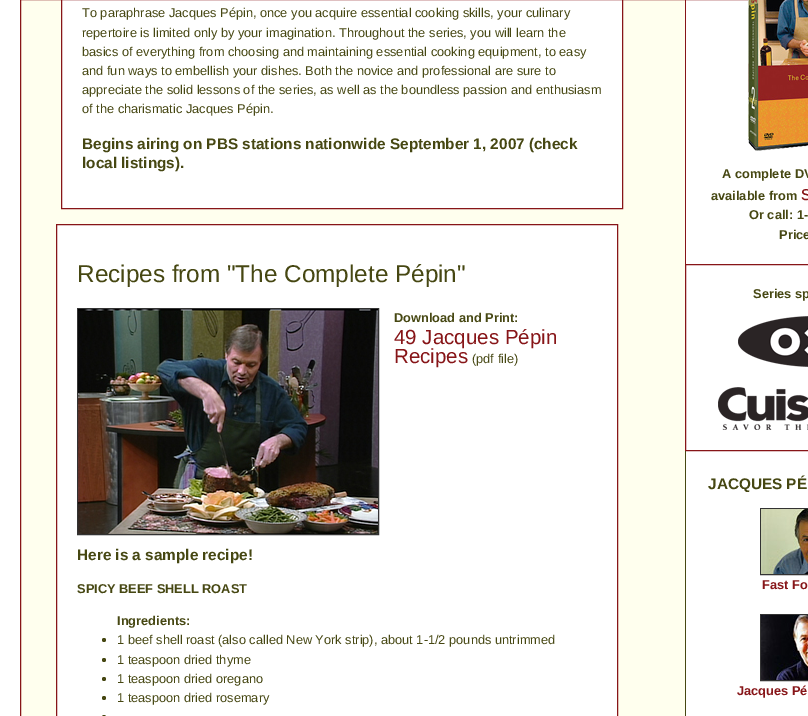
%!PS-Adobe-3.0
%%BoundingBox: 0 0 808 716
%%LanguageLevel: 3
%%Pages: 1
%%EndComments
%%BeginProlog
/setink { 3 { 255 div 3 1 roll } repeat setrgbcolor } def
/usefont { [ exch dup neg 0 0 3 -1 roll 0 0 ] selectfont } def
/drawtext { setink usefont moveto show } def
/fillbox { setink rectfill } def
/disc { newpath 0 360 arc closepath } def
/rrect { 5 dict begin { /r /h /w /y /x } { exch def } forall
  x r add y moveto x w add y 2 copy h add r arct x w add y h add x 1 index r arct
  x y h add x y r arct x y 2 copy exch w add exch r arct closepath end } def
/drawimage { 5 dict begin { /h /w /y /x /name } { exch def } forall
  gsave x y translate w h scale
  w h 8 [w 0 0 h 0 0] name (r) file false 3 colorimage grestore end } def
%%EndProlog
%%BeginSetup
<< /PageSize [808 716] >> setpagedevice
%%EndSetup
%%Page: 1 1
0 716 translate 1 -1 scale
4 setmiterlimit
0 0 808 716 255 255 255 fillbox
21 0 664 716 255 255 238 fillbox
135 21 24 setink
20.5 -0.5 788 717 rectstroke
255 255 255 setink
61.5 -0.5 moveto 622.5 -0.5 lineto 622.5 208.5 lineto 61.5 208.5 lineto closepath gsave fill grestore
135 21 24 setink
stroke
(To paraphrase Jacques Pépin, once you acquire essential cooking skills, your culinary) 82 17 /LiberationSans-Regular 12.8 70 71 18 drawtext
(repertoire is limited only by your imagination. Throughout the series, you will learn the) 82 37 /LiberationSans-Regular 12.8 70 71 18 drawtext
(basics of everything from choosing and maintaining essential cooking equipment, to easy) 82 56 /LiberationSans-Regular 12.8 70 71 18 drawtext
(and fun ways to embellish your dishes. Both the novice and professional are sure to) 82 75 /LiberationSans-Regular 12.8 70 71 18 drawtext
(appreciate the solid lessons of the series, as well as the boundless passion and enthusiasm) 82 94 /LiberationSans-Regular 12.8 70 71 18 drawtext
(of the charismatic Jacques Pépin.) 82 113 /LiberationSans-Regular 12.8 70 71 18 drawtext
(Begins airing on PBS stations nationwide September 1, 2007 \(check) 82 149 /LiberationSans-Bold 15.35 70 71 18 drawtext
(local listings\).) 82 168 /LiberationSans-Bold 15.35 70 71 18 drawtext
255 255 255 setink
56.5 224.5 moveto 617.5 224.5 lineto 617.5 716.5 lineto 56.5 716.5 lineto closepath gsave fill grestore
135 21 24 setink
stroke
(Recipes from "The Complete Pépin") 77 282 /LiberationSans-Regular 24.3 70 71 18 drawtext
51 51 51 setink
77.5 308.5 301 226 rectstroke
(assets/img1.rgb) 78 309 300 225 drawimage
(Download and Print:) 394 322 /LiberationSans-Bold 12.8 70 71 18 drawtext
(49 Jacques Pépin) 394 344 /LiberationSans-Regular 20.5 135 21 24 drawtext
(Recipes) 394 363 /LiberationSans-Regular 20.5 135 21 24 drawtext
(\(pdf file\)) 472 363 /LiberationSans-Regular 12.8 70 71 18 drawtext
(Here is a sample recipe!) 77 560 /LiberationSans-Bold 15.35 70 71 18 drawtext
(SPICY BEEF SHELL ROAST) 77 593 /LiberationSans-Bold 12.8 70 71 18 drawtext
(Ingredients:) 117 625 /LiberationSans-Bold 12.8 70 71 18 drawtext
104 640 2 disc fill
(1 beef shell roast \(also called New York strip\), about 1-1/2 pounds untrimmed) 117 644 /LiberationSans-Regular 12.8 70 71 18 drawtext
104 660 2 disc fill
(1 teaspoon dried thyme) 117 664 /LiberationSans-Regular 12.8 70 71 18 drawtext
104 679 2 disc fill
(1 teaspoon dried oregano) 117 683 /LiberationSans-Regular 12.8 70 71 18 drawtext
104 698 2 disc fill
(1 teaspoon dried rosemary) 117 702 /LiberationSans-Regular 12.8 70 71 18 drawtext
102 715 4 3 2 rrect fill
685 0 1 264 135 21 24 fillbox
(assets/img2.rgb) 748 0 60 151 drawimage
(A complete DV) 722 178 /LiberationSans-Bold 12.8 70 71 18 drawtext
(available from) 711 200 /LiberationSans-Bold 12.8 70 71 18 drawtext
(s) 801 200 /LiberationSans-Regular 20.5 135 21 24 drawtext
(Or call: 1-) 749 219 /LiberationSans-Bold 12.8 70 71 18 drawtext
(Price) 779 239 /LiberationSans-Bold 12.8 70 71 18 drawtext
135 21 24 setink
685.5 264.5 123 186 rectstroke
(Series sp) 753 298 /LiberationSans-Bold 12.8 70 71 18 drawtext
(assets/img3.rgb) 738 316 70 51 drawimage
(assets/img4.rgb) 718 387 90 43 drawimage
685 451 1 265 70 71 18 fillbox
(JACQUES PÉ) 708 489 /LiberationSans-Bold 15.35 70 71 18 drawtext
51 51 51 setink
760.5 508.5 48 66 rectstroke
(assets/img5.rgb) 761 509 47 65 drawimage
(Fast Fo) 762 589 /LiberationSans-Bold 12.8 135 21 24 drawtext
51 51 51 setink
760.5 614.5 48 66 rectstroke
(assets/img6.rgb) 761 615 47 65 drawimage
(Jacques Pé) 737 695 /LiberationSans-Bold 12.8 135 21 24 drawtext
showpage
%%EOF
